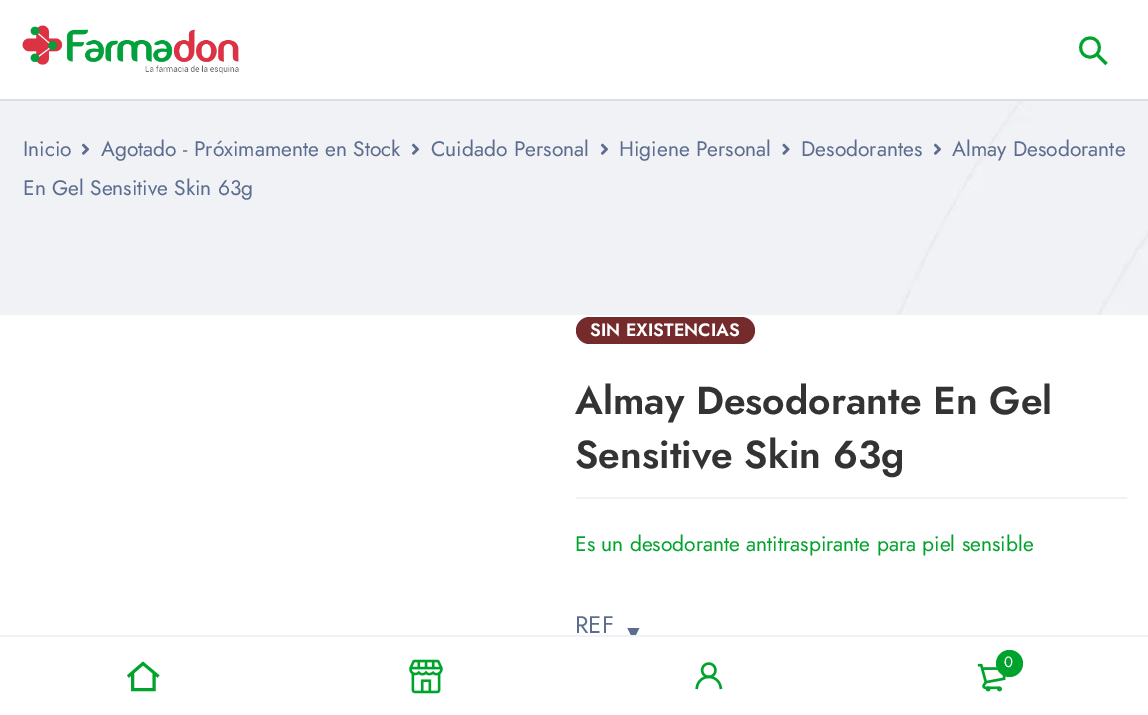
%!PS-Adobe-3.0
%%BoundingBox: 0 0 1148 715
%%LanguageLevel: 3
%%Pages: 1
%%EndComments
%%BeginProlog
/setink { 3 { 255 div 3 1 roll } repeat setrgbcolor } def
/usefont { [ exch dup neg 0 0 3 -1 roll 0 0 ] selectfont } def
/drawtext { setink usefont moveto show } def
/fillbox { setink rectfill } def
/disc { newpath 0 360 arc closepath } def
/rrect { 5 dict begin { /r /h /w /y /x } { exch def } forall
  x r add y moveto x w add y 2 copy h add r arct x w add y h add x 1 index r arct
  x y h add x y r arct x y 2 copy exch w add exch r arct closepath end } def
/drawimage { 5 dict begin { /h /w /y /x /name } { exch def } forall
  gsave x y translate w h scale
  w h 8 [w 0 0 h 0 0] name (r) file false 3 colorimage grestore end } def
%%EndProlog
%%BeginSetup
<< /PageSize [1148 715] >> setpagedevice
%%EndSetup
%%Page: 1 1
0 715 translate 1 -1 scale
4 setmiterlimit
0 0 1148 715 255 255 255 fillbox
0 99 1148 2 217 222 232 fillbox
(assets/img1.rgb) 22 25 217 49 drawimage
0 163 43 setink
2.9 setlinewidth
1090 57 moveto 1102.5 57 1102.5 38 1090 38 curveto 1077.5 38 1077.5 57 1090 57 curveto closepath 1106.5 64 moveto 1096.5 54 lineto stroke
(assets/img2.rgb) 0 101 1148 214 drawimage
(Inicio) 23 156 /Jost-Regular 21 91 108 143 drawtext
(assets/img3.rgb) 81 143 9 12 drawimage
(Agotado - Próximamente en Stock) 101 156 /Jost-Regular 21 91 108 143 drawtext
(assets/img3.rgb) 411 143 9 12 drawimage
(Cuidado Personal) 431 156 /Jost-Regular 21 91 108 143 drawtext
(assets/img3.rgb) 600 143 9 12 drawimage
(Higiene Personal) 619 156 /Jost-Regular 21 91 108 143 drawtext
(assets/img4.rgb) 782 143 8 12 drawimage
(Desodorantes) 801 156 /Jost-Regular 21 91 108 143 drawtext
(assets/img3.rgb) 933 143 9 12 drawimage
(Almay Desodorante) 952 156 /Jost-Regular 21 91 108 143 drawtext
(En Gel Sensitive Skin 63g) 23 195 /Jost-Regular 21 91 108 143 drawtext
117 42 43 setink
576 317 179 27 13.5 rrect fill
(SIN EXISTENCIAS) 590 336 /Jost-SemiBold 18 255 255 255 drawtext
(Almay Desodorante En Gel) 575 414 /Jost-SemiBold 39 51 51 51 drawtext
(Sensitive Skin 63g) 575 468 /Jost-SemiBold 39 51 51 51 drawtext
576 497 551 2 240 242 245 fillbox
(Es un desodorante antitraspirante para piel sensible) 575 551 /Jost-Regular 21 0 163 43 drawtext
(REF) 575 633 /Jost-Regular 24 91 108 143 drawtext
(▼) 623 640 /LiberationSerif-Regular 21 91 108 143 drawtext
632 637 4 4 255 255 255 fillbox
0 635 1148 2 240 242 245 fillbox
0 163 43 setink
154 673.5 moveto 154 689.5 lineto 132.5 689.5 lineto 132.5 673.5 lineto 158.5 676.5 moveto 143 663.5 lineto 128 676.5 lineto stroke
(assets/img5.rgb) 409 659 34 35 drawimage
(assets/img6.rgb) 695 662 28 28 drawimage
(assets/img7.rgb) 977 663 29 29 drawimage
1009.5 663.5 13.5 disc fill
(0) 1004 667 /Jost-Regular 15 255 255 255 drawtext
showpage
%%EOF
